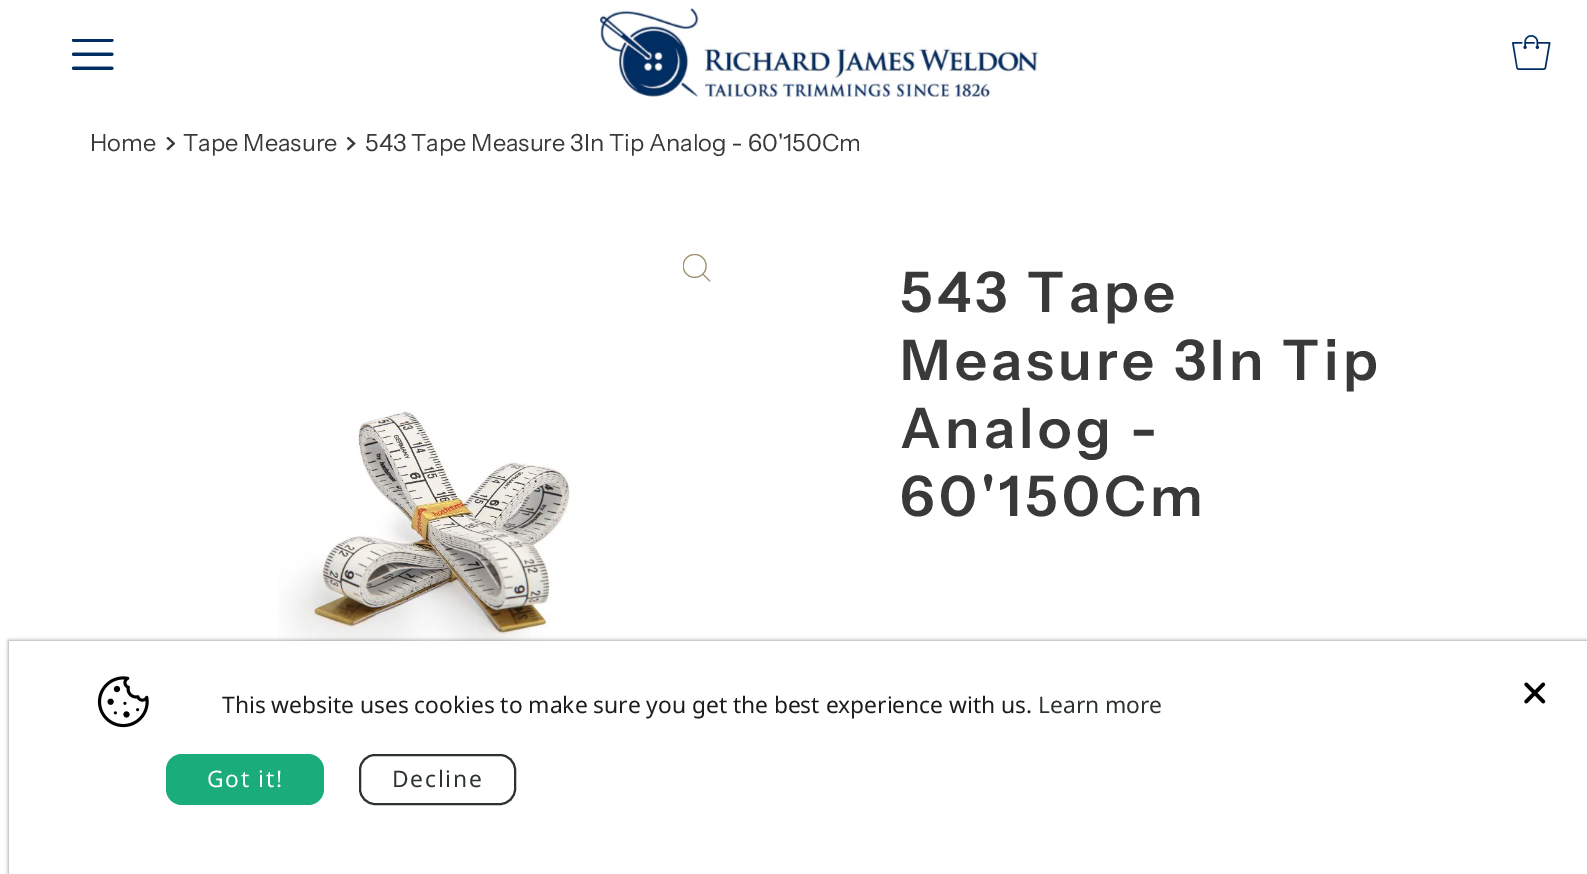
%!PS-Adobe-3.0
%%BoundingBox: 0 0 1587 874
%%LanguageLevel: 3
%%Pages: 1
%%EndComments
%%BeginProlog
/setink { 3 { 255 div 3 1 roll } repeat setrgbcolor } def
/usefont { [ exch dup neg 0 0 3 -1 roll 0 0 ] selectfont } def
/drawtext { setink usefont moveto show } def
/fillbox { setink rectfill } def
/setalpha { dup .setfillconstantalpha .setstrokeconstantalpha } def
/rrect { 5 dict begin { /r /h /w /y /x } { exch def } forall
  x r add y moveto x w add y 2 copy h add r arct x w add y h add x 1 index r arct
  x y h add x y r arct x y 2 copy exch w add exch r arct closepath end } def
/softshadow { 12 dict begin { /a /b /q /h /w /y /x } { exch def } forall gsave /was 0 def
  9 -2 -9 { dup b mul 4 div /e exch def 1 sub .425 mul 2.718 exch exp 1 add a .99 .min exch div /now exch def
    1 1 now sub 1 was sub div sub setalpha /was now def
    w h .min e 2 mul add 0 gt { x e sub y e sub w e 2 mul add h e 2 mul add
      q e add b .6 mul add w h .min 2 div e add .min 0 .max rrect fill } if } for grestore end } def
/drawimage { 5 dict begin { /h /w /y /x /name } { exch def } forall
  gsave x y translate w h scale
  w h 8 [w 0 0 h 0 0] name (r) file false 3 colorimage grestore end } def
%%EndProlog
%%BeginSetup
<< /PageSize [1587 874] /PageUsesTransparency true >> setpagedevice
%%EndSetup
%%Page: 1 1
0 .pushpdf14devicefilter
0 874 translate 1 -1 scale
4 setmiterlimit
0 0 1587 874 255 255 255 fillbox
(assets/img1.rgb) 72 39 42 31 drawimage
(assets/img2.rgb) 600 8 439 89 drawimage
(assets/img3.rgb) 1512 35 39 35 drawimage
(Home) 90 151 /InstrumentSans-Regular 23.6 57 57 57 drawtext
(assets/img4.rgb) 166 137 9 14 drawimage
(Tape Measure) 183 151 /InstrumentSans-Regular 23.6 57 57 57 drawtext
(assets/img5.rgb) 347 137 9 14 drawimage
(543 Tape Measure 3In Tip Analog - 60'150Cm) 365 151 /InstrumentSans-Regular 23.6 57 57 57 drawtext
(assets/img6.rgb) 683 254 28 28 drawimage
(assets/img7.rgb) 278 410 296 231 drawimage
/InstrumentSans-SemiBold 56 usefont
900 312 moveto 4.25 0 (543 Tape) ashow
900 380 moveto 4.25 0 (Measure 3In Tip) ashow
900 448 moveto 4.25 0 (Analog -) ashow
900 516 moveto 4.25 0 (60'150Cm) ashow
0 0 0 setink
9 641 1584 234 0 2 0.5 softshadow
9 641 1578 233 255 255 255 fillbox
(assets/img8.rgb) 97 676 52 52 drawimage
(This website uses cookies to make sure you get the best experience with us.) 222 713 /NotoSans-Regular 22.75 29 29 29 drawtext
(Learn more) 1038 713 /NotoSans-Regular 22.75 44 51 47 drawtext
26 172 122 setink
166 754 158 51 16 rrect fill
255 255 255 setink
207 787 moveto 1.75 0 (Got it!) ashow
44 51 47 setink
2 setlinewidth
360 755 155 49 15 rrect stroke
392 787 moveto 1.75 0 (Decline) ashow
(assets/img9.rgb) 1524 682 22 22 drawimage
.poppdf14devicefilter showpage
%%EOF
